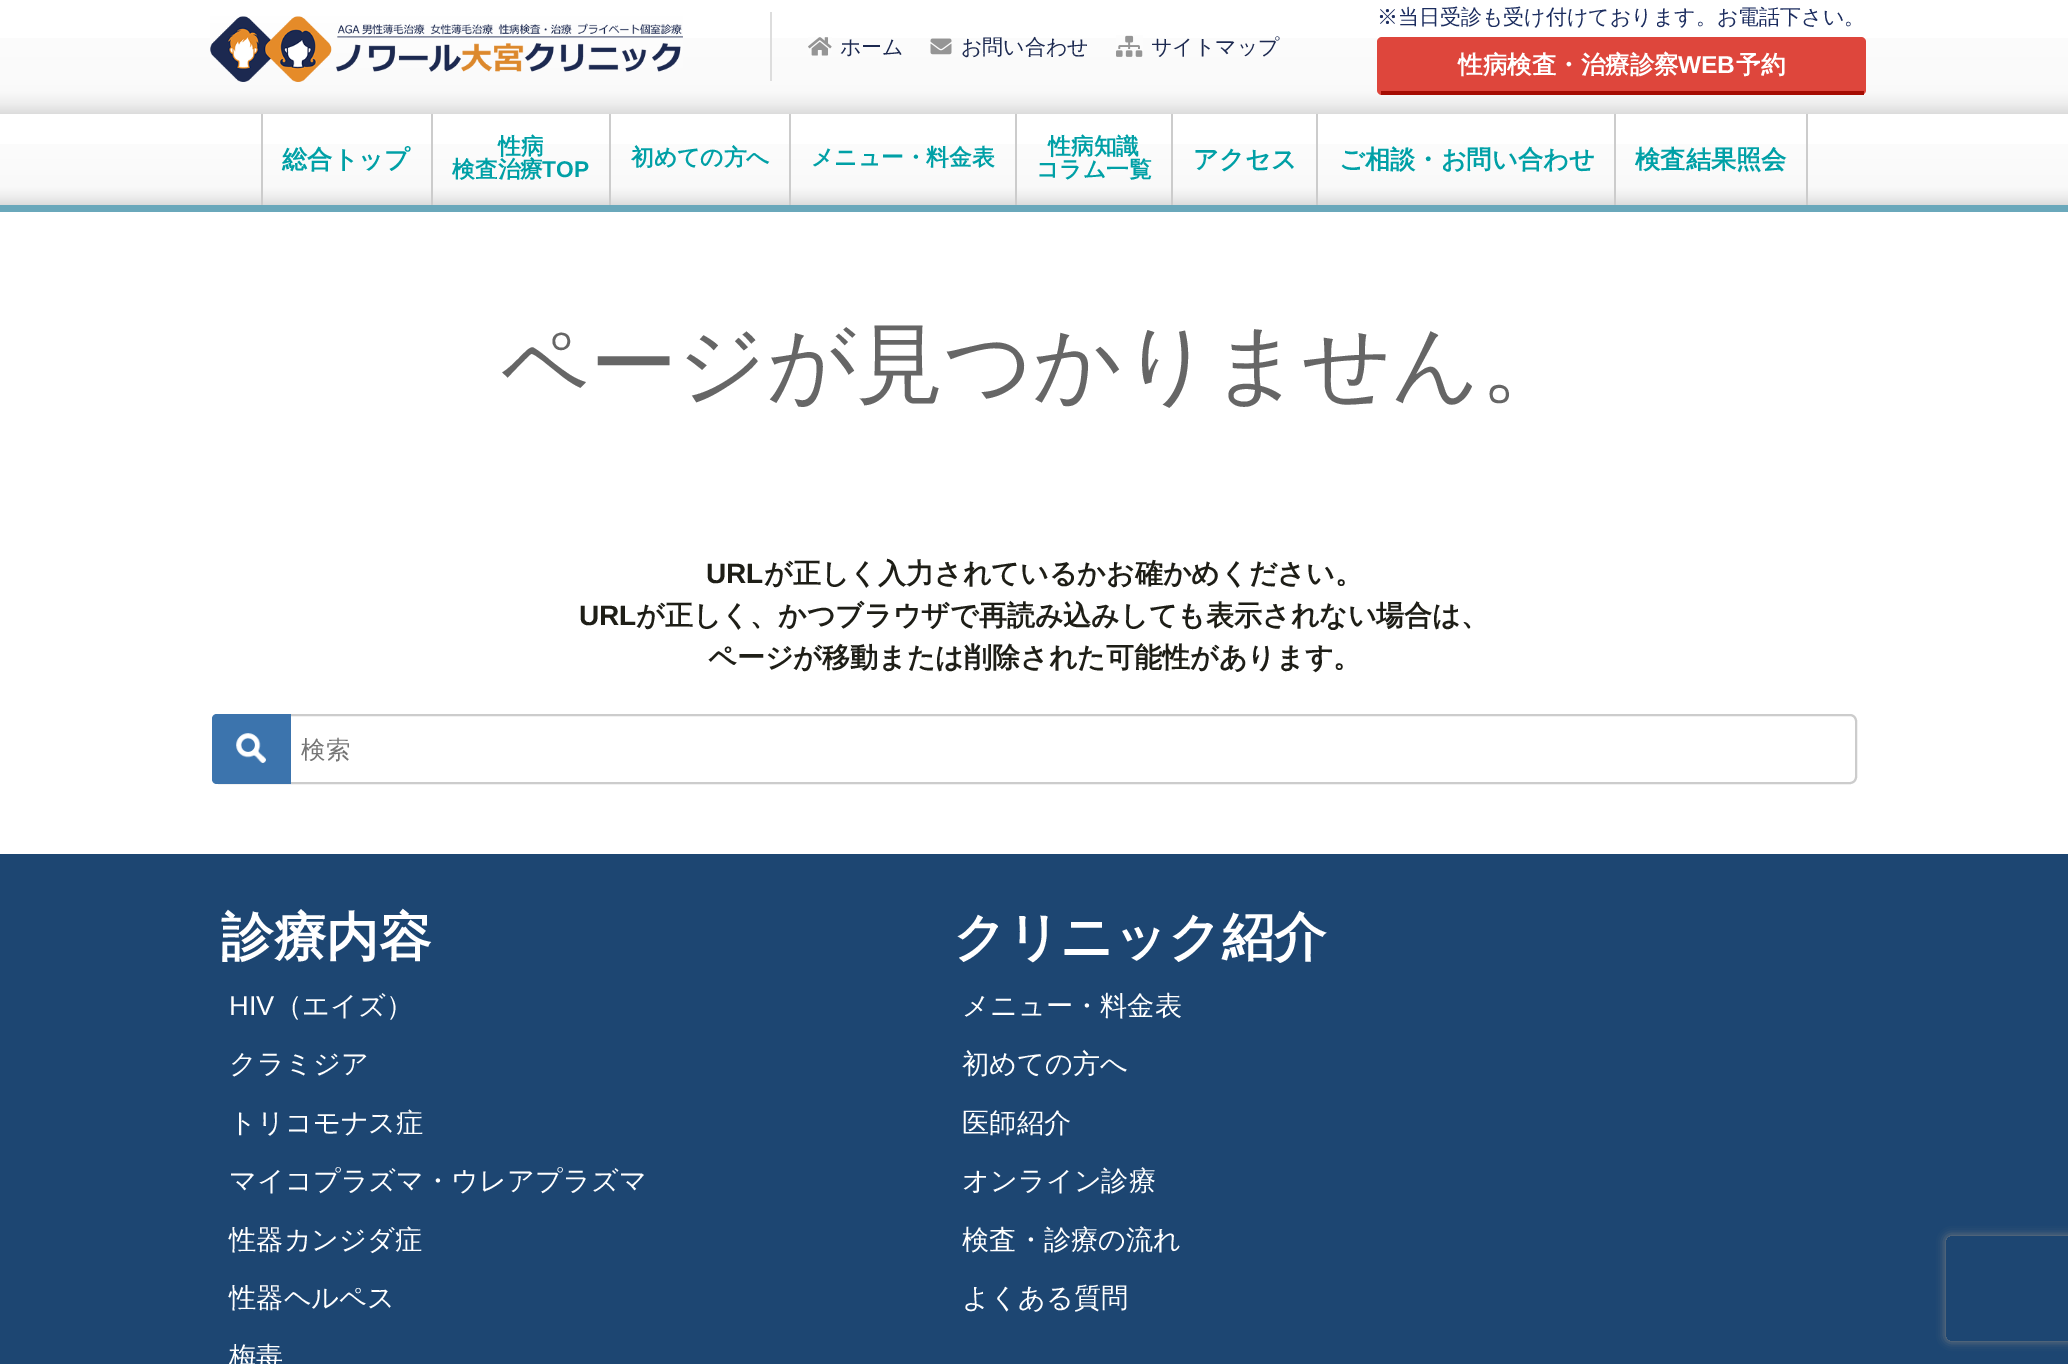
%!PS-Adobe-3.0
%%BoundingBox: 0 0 2068 1364
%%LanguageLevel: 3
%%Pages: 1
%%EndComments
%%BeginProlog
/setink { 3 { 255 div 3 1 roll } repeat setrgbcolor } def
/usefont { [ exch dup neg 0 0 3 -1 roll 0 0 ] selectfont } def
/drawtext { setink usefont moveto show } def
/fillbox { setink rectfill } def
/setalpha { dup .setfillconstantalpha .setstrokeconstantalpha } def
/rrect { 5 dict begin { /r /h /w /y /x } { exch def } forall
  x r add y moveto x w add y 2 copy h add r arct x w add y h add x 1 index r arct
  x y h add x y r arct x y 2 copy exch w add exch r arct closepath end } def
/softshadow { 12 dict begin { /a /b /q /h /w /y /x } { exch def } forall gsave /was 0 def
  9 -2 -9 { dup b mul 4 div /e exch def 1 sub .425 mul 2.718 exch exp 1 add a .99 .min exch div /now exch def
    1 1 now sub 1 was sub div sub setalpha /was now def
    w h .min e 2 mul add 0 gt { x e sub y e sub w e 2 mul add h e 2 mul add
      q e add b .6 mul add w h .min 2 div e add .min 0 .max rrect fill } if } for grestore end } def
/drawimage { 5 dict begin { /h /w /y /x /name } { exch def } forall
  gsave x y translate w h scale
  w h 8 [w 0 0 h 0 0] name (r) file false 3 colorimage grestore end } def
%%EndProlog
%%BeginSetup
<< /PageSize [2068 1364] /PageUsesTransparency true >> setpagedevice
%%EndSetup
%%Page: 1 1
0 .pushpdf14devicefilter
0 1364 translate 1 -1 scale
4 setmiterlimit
0 0 2068 1364 255 255 255 fillbox
gsave 0 38 moveto 2068 38 lineto 2068 114 lineto 0 114 lineto closepath clip newpath
<< /ShadingType 2 /ColorSpace /DeviceRGB /Coords [1034 0 1034 114] /Extend [true true] /Function << /FunctionType 3 /Domain [0 1] /Functions [<< /FunctionType 2 /Domain [0 1] /C0 [1 1 1] /C1 [0.976 0.976 0.976] /N 1 >> << /FunctionType 2 /Domain [0 1] /C0 [0.976 0.976 0.976] /C1 [0.937 0.937 0.937] /N 1 >> << /FunctionType 2 /Domain [0 1] /C0 [0.937 0.937 0.937] /C1 [0.863 0.863 0.863] /N 1 >>] /Bounds [0.8 0.9] /Encode [0 1 0 1 0 1] >> >> shfill grestore
770 12 2 69 221 221 221 fillbox
(assets/img1.rgb) 808 37 24 19 drawimage
(ホーム) 840 54 /WenQuanYiZenHei-Medium 21 28 41 80 drawtext
(assets/img2.rgb) 930 38 22 17 drawimage
(お問い合わせ) 961 54 /WenQuanYiZenHei-Medium 21 28 41 80 drawtext
(assets/img3.rgb) 1116 35 27 22 drawimage
(サイトマップ) 1151 54 /WenQuanYiZenHei-Medium 21 28 41 80 drawtext
(assets/img4.rgb) 210 16 473 66 drawimage
(※当日受診も受け付けております。お電話下さい。) 1377 24 /WenQuanYiZenHei-Medium 21 28 45 95 drawtext
222 70 60 setink
1377 37 489 58 5 rrect fill
1381 91 483 4 165 12 2 fillbox
(性病検査・治療診察) 1458 73 /WenQuanYiZenHei-Bold 24.5 255 255 255 drawtext
(WEB) 1678 73 /LiberationSans-Bold 24.5 255 255 255 drawtext
(予約) 1736 73 /WenQuanYiZenHei-Bold 24.5 255 255 255 drawtext
gsave 0 144 moveto 2068 144 lineto 2068 205 lineto 0 205 lineto closepath clip newpath
<< /ShadingType 2 /ColorSpace /DeviceRGB /Coords [1034 114 1034 205] /Extend [true true] /Function << /FunctionType 3 /Domain [0 1] /Functions [<< /FunctionType 2 /Domain [0 1] /C0 [1 1 1] /C1 [0.976 0.976 0.976] /N 1 >> << /FunctionType 2 /Domain [0 1] /C0 [0.976 0.976 0.976] /C1 [0.937 0.937 0.937] /N 1 >> << /FunctionType 2 /Domain [0 1] /C0 [0.937 0.937 0.937] /C1 [0.863 0.863 0.863] /N 1 >>] /Bounds [0.8 0.9] /Encode [0 1 0 1 0 1] >> >> shfill grestore
0 205 2068 7 106 168 187 fillbox
261 114 2 91 204 204 204 fillbox
(総合トップ) 282 168 /WenQuanYiZenHei-Bold 25.25 0 160 166 drawtext
431 114 2 91 204 204 204 fillbox
(性病) 498 154 /WenQuanYiZenHei-Bold 22.75 0 160 166 drawtext
(検査治療) 452 177 /WenQuanYiZenHei-Bold 22.75 0 160 166 drawtext
(TOP) 542 177 /LiberationSans-Bold 22.75 0 160 166 drawtext
609 114 2 91 204 204 204 fillbox
(初めての方へ) 631 165 /WenQuanYiZenHei-Bold 22.75 0 160 166 drawtext
789 114 2 91 204 204 204 fillbox
(メニュー・料金表) 811 165 /WenQuanYiZenHei-Bold 22.75 0 160 166 drawtext
1015 114 2 91 204 204 204 fillbox
(性病知識) 1048 154 /WenQuanYiZenHei-Bold 22.75 0 160 166 drawtext
(コラム一覧) 1036 177 /WenQuanYiZenHei-Bold 22.75 0 160 166 drawtext
1171 114 2 91 204 204 204 fillbox
(アクセス) 1193 168 /WenQuanYiZenHei-Bold 25.25 0 160 166 drawtext
1316 114 2 91 204 204 204 fillbox
(ご相談・お問い合わせ) 1339 168 /WenQuanYiZenHei-Bold 25.25 0 160 166 drawtext
1806 114 2 91 204 204 204 fillbox
1614 114 2 91 204 204 204 fillbox
(検査結果照会) 1635 168 /WenQuanYiZenHei-Bold 25.25 0 160 166 drawtext
(ページが見つかりません。) 500 394 /WenQuanYiZenHei-Medium 87.5 102 102 102 drawtext
(URL) 706 583 /LiberationSans-Bold 28 30 30 23 drawtext
(が正しく入力されているかお確かめください。) 764 583 /WenQuanYiZenHei-Bold 28 30 30 23 drawtext
(URL) 579 625 /LiberationSans-Bold 28 30 30 23 drawtext
(が正しく、かつブラウザで再読み込みしても表示されない場合は、) 636 625 /WenQuanYiZenHei-Bold 28 30 30 23 drawtext
(ページが移動または削除された可能性があります。) 708 667 /WenQuanYiZenHei-Bold 28 30 30 23 drawtext
204 204 204 setink
2 setlinewidth
213 715 1643 68 6 rrect stroke
60 116 173 setink
217 714 moveto 291 714 lineto 291 784 lineto 217 784 lineto 214 784 212 782 212 779 curveto 212 719 lineto 212 716 214 714 217 714 curveto closepath fill
(assets/img5.rgb) 236 733 30 30 drawimage
(検索) 301 758 /WenQuanYiZenHei-Medium 24.5 117 117 117 drawtext
0 854 2068 510 29 70 114 fillbox
(診療内容) 221 955 /WenQuanYiZenHei-Bold 52.5 255 255 255 drawtext
(HIV) 229 1015 /LiberationSans-Regular 27.25 255 255 255 drawtext
(（エイズ）) 275 1015 /WenQuanYiZenHei-Medium 27.25 255 255 255 drawtext
(クラミジア) 229 1073 /WenQuanYiZenHei-Medium 27.25 255 255 255 drawtext
(トリコモナス症) 229 1132 /WenQuanYiZenHei-Medium 27.25 255 255 255 drawtext
(マイコプラズマ・ウレアプラズマ) 229 1190 /WenQuanYiZenHei-Medium 27.25 255 255 255 drawtext
(性器カンジダ症) 229 1249 /WenQuanYiZenHei-Medium 27.25 255 255 255 drawtext
(性器ヘルペス) 229 1307 /WenQuanYiZenHei-Medium 27.25 255 255 255 drawtext
(梅毒) 229 1366 /WenQuanYiZenHei-Medium 27.25 255 255 255 drawtext
(クリニック紹介) 953 955 /WenQuanYiZenHei-Bold 52.5 255 255 255 drawtext
(メニュー・料金表) 962 1015 /WenQuanYiZenHei-Medium 27.25 255 255 255 drawtext
(初めての方へ) 962 1073 /WenQuanYiZenHei-Medium 27.25 255 255 255 drawtext
(医師紹介) 962 1132 /WenQuanYiZenHei-Medium 27.25 255 255 255 drawtext
(オンライン診療) 962 1190 /WenQuanYiZenHei-Medium 27.25 255 255 255 drawtext
(検査・診療の流れ) 962 1249 /WenQuanYiZenHei-Medium 27.25 255 255 255 drawtext
(よくある質問) 962 1307 /WenQuanYiZenHei-Medium 27.25 255 255 255 drawtext
gsave
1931 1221 moveto 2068 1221 lineto 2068 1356 lineto 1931 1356 lineto closepath 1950 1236 moveto 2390 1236 lineto 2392 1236 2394 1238 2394 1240 curveto 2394 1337 lineto 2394 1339 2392 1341 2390 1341 curveto 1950 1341 lineto 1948 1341 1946 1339 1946 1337 curveto 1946 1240 lineto 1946 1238 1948 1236 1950 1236 curveto closepath eoclip newpath
128 128 128 setink
1946 1236 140 105 4 4.5 1 softshadow
grestore
.poppdf14devicefilter showpage
%%EOF
